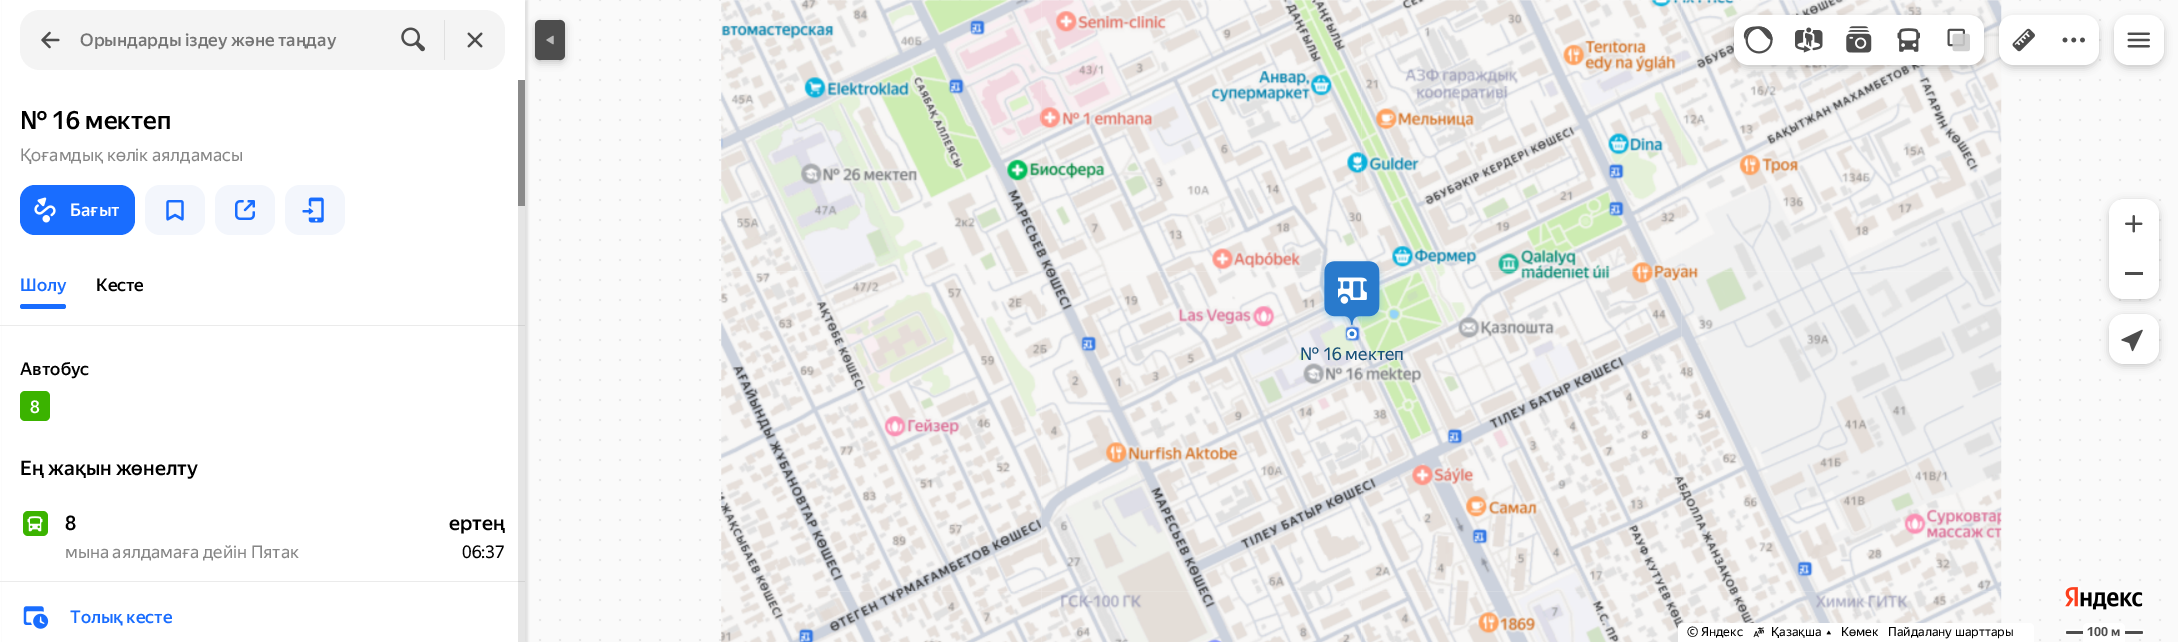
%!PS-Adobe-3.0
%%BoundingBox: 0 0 2178 642
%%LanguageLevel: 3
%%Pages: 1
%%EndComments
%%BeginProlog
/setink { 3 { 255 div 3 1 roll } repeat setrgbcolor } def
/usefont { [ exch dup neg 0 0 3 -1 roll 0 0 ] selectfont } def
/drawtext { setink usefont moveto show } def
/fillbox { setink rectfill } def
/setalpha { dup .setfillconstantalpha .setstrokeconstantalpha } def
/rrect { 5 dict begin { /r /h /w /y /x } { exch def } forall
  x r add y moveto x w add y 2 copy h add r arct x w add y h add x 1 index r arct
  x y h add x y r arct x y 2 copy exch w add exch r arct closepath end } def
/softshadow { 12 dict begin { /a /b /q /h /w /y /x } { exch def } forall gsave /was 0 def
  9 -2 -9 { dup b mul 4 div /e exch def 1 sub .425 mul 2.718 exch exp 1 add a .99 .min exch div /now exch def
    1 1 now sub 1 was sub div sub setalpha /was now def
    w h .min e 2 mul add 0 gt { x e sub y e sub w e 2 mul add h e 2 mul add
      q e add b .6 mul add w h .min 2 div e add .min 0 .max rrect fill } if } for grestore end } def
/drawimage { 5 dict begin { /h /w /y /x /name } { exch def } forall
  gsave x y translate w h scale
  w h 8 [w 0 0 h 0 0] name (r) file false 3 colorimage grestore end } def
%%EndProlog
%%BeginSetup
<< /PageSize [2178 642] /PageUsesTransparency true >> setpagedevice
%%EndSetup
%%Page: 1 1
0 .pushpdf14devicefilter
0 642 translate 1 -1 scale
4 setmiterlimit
0 0 2178 642 255 255 255 fillbox
(assets/img1.rgb) 525 0 1653 642 drawimage
0 0 0 setink
3 0 525 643 0 1 0.1 softshadow
535 23 30 40 5 4 0.2 softshadow
2 0 523 642 255 255 255 fillbox
244 244 244 setink
20 10 485 60 20 rrect fill
(assets/img2.rgb) 41 31 19 18 drawimage
(Орындарды іздеу және таңдау) 80 46 /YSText-Medium 17.5 117 117 117 drawtext
(assets/img3.rgb) 401 27 24 25 drawimage
444 20 1 40 224 224 224 fillbox
(assets/img4.rgb) 467 32 16 16 drawimage
(assets/img25.rgb) 721 0 321 271 drawimage
(assets/img26.rgb) 1041 0 321 272 drawimage
(assets/img27.rgb) 1361 0 321 272 drawimage
(assets/img28.rgb) 1681 0 321 272 drawimage
0 0 0 setink
1734 18 250 50 15 4 0.2 softshadow
255 255 255 setink
1749 15 moveto 1784 15 lineto 1784 65 lineto 1749 65 lineto 1740.5 65 1734 58.5 1734 50 curveto 1734 30 lineto 1734 21.5 1740.5 15 1749 15 curveto closepath fill
(assets/img5.rgb) 1743 26 30 28 drawimage
1784 15 150 50 255 255 255 fillbox
(assets/img6.rgb) 1795 27 28 26 drawimage
1934 15 moveto 1969 15 lineto 1977.5 15 1984 21.5 1984 30 curveto 1984 50 lineto 1984 58.5 1977.5 65 1969 65 curveto 1934 65 lineto closepath fill
(assets/img7.rgb) 1947 28 23 24 drawimage
(assets/img8.rgb) 1846 26 26 27 drawimage
(assets/img9.rgb) 1897 28 23 24 drawimage
0 0 0 setink
1999 18 100 50 15 4 0.2 softshadow
255 255 255 setink
2014 15 moveto 2049 15 lineto 2049 65 lineto 2014 65 lineto 2005.5 65 1999 58.5 1999 50 curveto 1999 30 lineto 1999 21.5 2005.5 15 2014 15 curveto closepath fill
(assets/img10.rgb) 2012 28 23 24 drawimage
2049 15 moveto 2084 15 lineto 2092.5 15 2099 21.5 2099 30 curveto 2099 50 lineto 2099 58.5 2092.5 65 2084 65 curveto 2049 65 lineto closepath fill
(assets/img11.rgb) 2062 37 23 6 drawimage
0 0 0 setink
2114 18 50 50 15 4 0.2 softshadow
255 255 255 setink
2114 15 50 50 15 rrect fill
(assets/img12.rgb) 2127 32 23 16 drawimage
0 0 0 setink
2109 201 50 100 15 4 0.2 softshadow
255 255 255 setink
2124 199 moveto 2144 199 lineto 2152.5 199 2159 205.5 2159 214 curveto 2159 249 lineto 2109 249 lineto 2109 214 lineto 2109 205.5 2115.5 199 2124 199 curveto closepath fill
(assets/img13.rgb) 2125 215 18 18 drawimage
2109 249 moveto 2159 249 lineto 2159 284 lineto 2159 292.5 2152.5 299 2144 299 curveto 2124 299 lineto 2115.5 299 2109 292.5 2109 284 curveto closepath fill
2125 272 18 3 77 77 77 fillbox
0 0 0 setink
2109 316 50 50 15 4 0.2 softshadow
255 255 255 setink
2109 314 50 50 15 rrect fill
(assets/img14.rgb) 2121 329 22 23 drawimage
77 77 77 setink
535 20 30 40 5 rrect fill
(assets/img15.rgb) 546 35 8 10 drawimage
(№ 16 мектеп) 20 129 /YSText-Medium 25 0 0 0 drawtext
(Қоғамдық көлік аялдамасы) 20 161 /YSText-Regular 17.5 135 135 135 drawtext
25 109 255 setink
20 185 115 50 15 rrect fill
(assets/img16.rgb) 34 197 22 26 drawimage
(Бағыт) 70 216 /YSText-Medium 17.5 255 255 255 drawtext
243 246 252 setink
145 185 60 50 15 rrect fill
(assets/img17.rgb) 166 200 18 21 drawimage
215 185 60 50 15 rrect fill
(assets/img18.rgb) 235 200 20 20 drawimage
285 185 60 50 15 rrect fill
(assets/img19.rgb) 302 197 22 26 drawimage
(Шолу) 20 291 /YSText-Medium 17.5 25 109 255 drawtext
(Кесте) 96 291 /YSText-Medium 17.5 0 0 0 drawtext
25 109 255 setink
20 304 46 5 2.5 rrect fill
0 325 525 1 235 235 235 fillbox
(Автобус) 20 375 /YSText-Medium 17.5 0 0 0 drawtext
59 179 0 setink
20 391 30 30 5 rrect fill
(8) 30 413 /YSText-Medium 17.5 255 255 255 drawtext
(Ең жақын жөнелту) 20 475 /YSText-Medium 20 0 0 0 drawtext
59 179 0 setink
23 511 25 25 5 rrect fill
(assets/img20.rgb) 27 516 16 16 drawimage
(8) 65 530 /YSText-Medium 20 0 0 0 drawtext
(мына аялдамаға дейін Пятак) 65 558 /YSText-Regular 17.5 135 135 135 drawtext
(ертең) 449 530 /YSText-Medium 20 0 0 0 drawtext
(06:37) 462 558 /YSText-Regular 17.5 0 0 0 drawtext
0 581 525 1 235 235 235 fillbox
(assets/img21.rgb) 23 606 26 23 drawimage
(Толық кесте) 70 623 /YSText-Medium 17.5 25 109 255 drawtext
518 80 7 126 138 138 138 fillbox
0.1 setalpha
518 206 7 436 0 0 0 fillbox
1 setalpha
(assets/img22.rgb) 2065 587 78 23 drawimage
(assets/img29.rgb) 721 271 321 321 drawimage
(assets/img30.rgb) 1041 271 321 321 drawimage
(assets/img31.rgb) 1361 271 321 321 drawimage
(assets/img32.rgb) 1681 271 321 321 drawimage
(assets/img33.rgb) 721 591 321 51 drawimage
(assets/img34.rgb) 1041 591 321 51 drawimage
(assets/img35.rgb) 1361 591 321 51 drawimage
(assets/img36.rgb) 1681 591 321 33 drawimage
255 255 255 setink
1683 623 moveto 2029 623 lineto 2032 623 2034 625 2034 628 curveto 2034 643 lineto 1678 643 lineto 1678 628 lineto 1678 625 1680 623 1683 623 curveto closepath fill
(© Яндекс) 1687 636 /YSText-Regular 12.5 0 0 0 drawtext
(assets/img23.rgb) 1753 627 11 11 drawimage
(Қазақша) 1771 636 /YSText-Regular 12.5 0 0 0 drawtext
(assets/img24.rgb) 1826 630 5 5 drawimage
(Көмек) 1841 636 /YSText-Regular 12.5 0 0 0 drawtext
(Пайдалану шарттары) 1888 636 /YSText-Regular 12.5 0 0 0 drawtext
253 253 253 setink
2064 629 81 7 3.5 rrect fill
77 77 77 setink
2066 631 77 3 1.5 rrect fill
255 255 255 setink
2088 623 moveto 2120 623 lineto 2123 623 2125 625 2125 628 curveto 2125 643 lineto 2083 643 lineto 2083 628 lineto 2083 625 2085 623 2088 623 curveto closepath fill
(100 м) 2087 636 /YSText-Bold 12.5 77 77 77 drawtext
(assets/img37.rgb) 1319 259 66 80 drawimage
(assets/img38.rgb) 1338 277 29 27 drawimage
(№ 16 мектеп) 1300 360 /YSText-Regular 17.5 23 80 120 drawtext
.poppdf14devicefilter showpage
%%EOF
